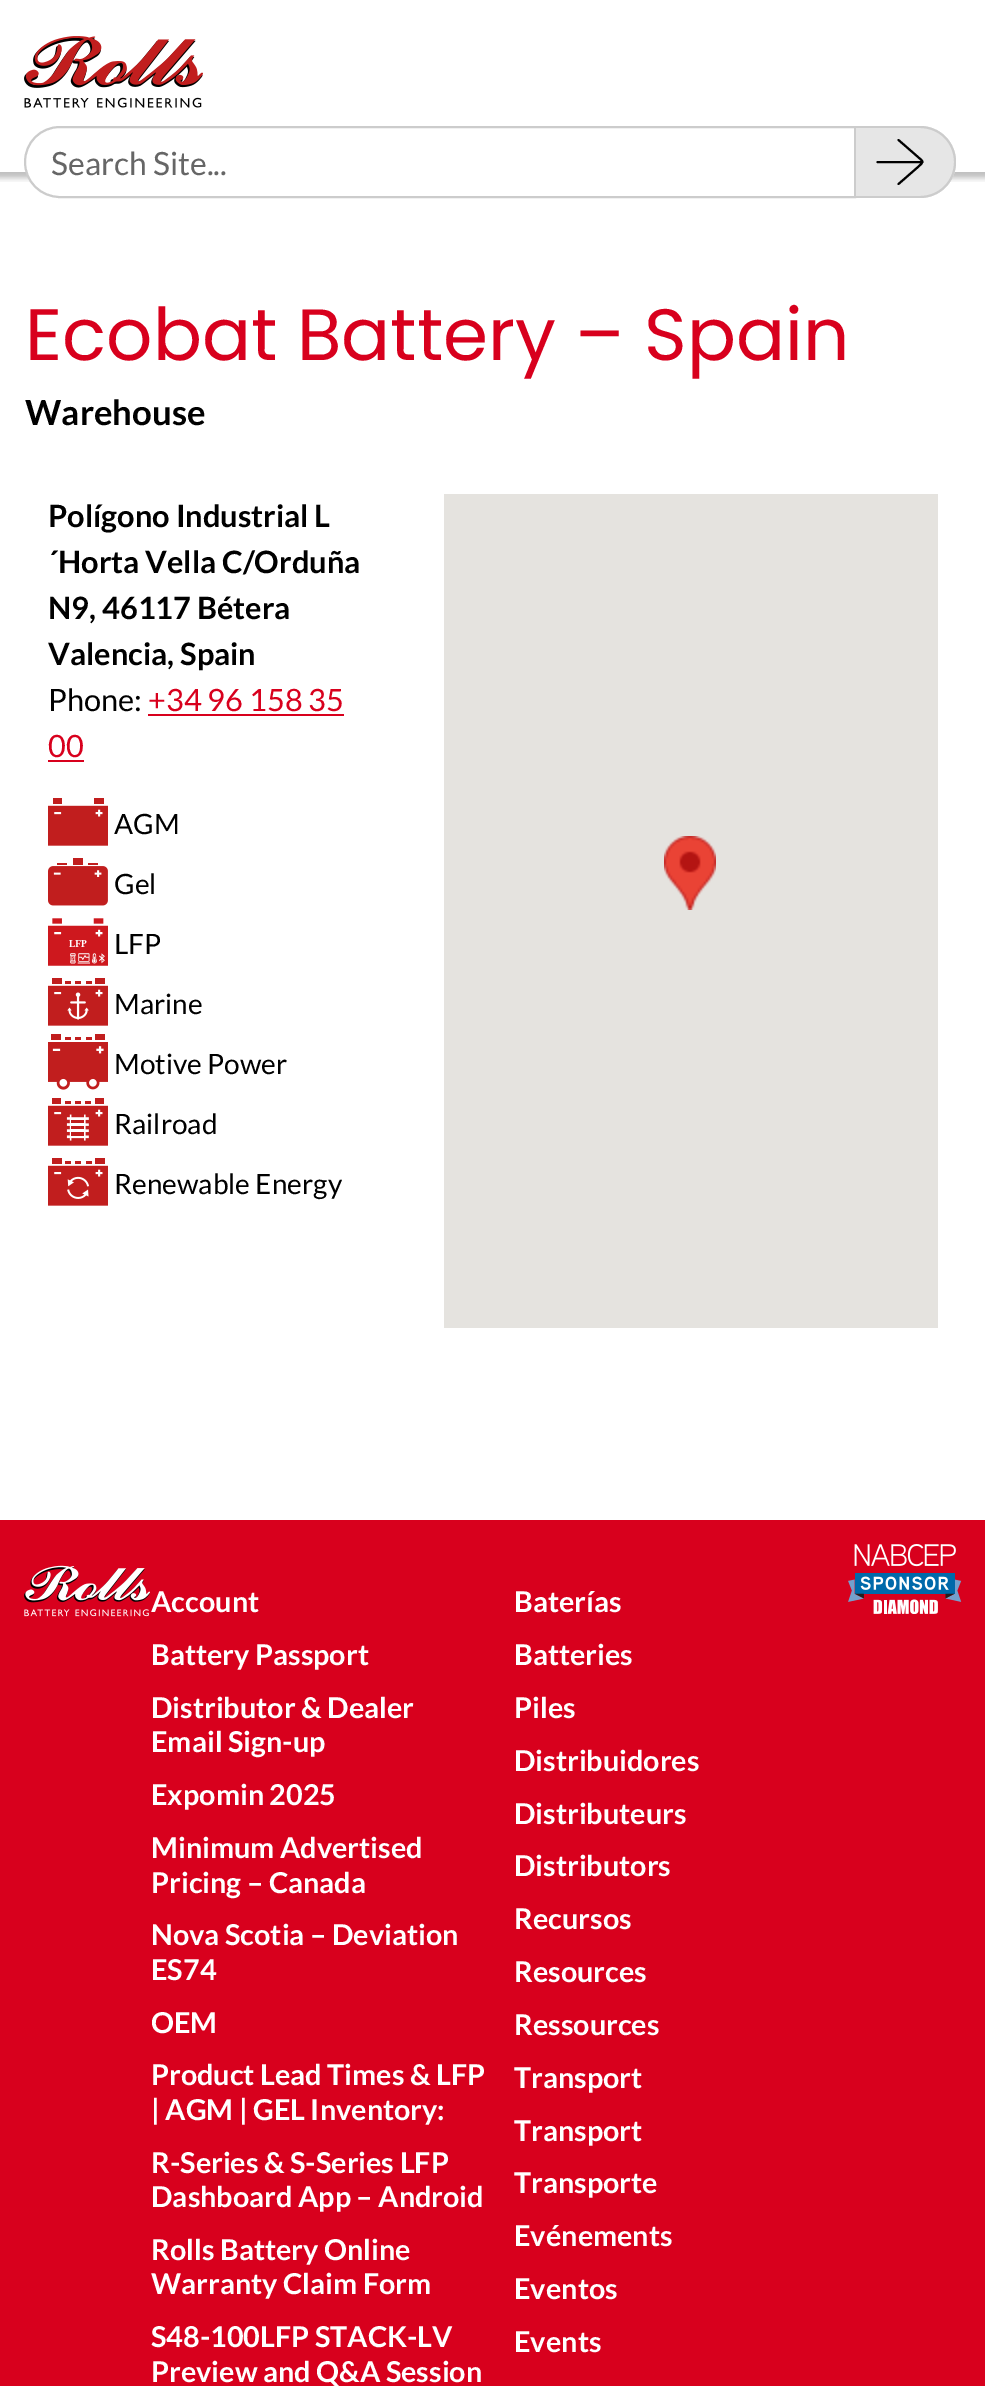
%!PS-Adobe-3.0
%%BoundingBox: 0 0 985 2386
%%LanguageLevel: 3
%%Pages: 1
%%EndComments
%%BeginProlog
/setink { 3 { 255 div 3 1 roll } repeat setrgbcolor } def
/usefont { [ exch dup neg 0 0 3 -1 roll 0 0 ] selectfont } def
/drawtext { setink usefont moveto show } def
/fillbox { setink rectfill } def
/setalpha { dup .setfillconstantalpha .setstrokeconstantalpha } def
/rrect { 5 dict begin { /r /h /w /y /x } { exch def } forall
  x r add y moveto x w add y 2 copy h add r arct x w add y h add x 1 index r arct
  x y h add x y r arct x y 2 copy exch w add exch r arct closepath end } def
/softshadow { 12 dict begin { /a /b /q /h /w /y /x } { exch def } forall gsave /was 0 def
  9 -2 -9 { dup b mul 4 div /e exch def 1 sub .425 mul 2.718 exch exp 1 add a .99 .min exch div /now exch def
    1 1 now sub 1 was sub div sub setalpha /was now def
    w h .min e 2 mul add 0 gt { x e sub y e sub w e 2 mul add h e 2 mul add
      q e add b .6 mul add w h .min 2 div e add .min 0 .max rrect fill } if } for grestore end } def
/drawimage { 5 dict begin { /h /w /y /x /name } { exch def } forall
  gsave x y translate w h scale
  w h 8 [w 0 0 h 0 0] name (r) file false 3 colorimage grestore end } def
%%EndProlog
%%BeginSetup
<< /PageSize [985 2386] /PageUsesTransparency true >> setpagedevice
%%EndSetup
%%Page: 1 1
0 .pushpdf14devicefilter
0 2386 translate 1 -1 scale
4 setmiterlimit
0 0 985 2386 255 255 255 fillbox
gsave
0 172 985 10 rectclip
0 0 0 setink
-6 -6 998 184 0 3 0.25 softshadow
grestore
(assets/img1.rgb) 24 36 179 72 drawimage
60 127 moveto 855 127 lineto 855 197 lineto 60 197 lineto 40.5 197 25 181.5 25 162 curveto 25 142.5 40.5 127 60 127 curveto closepath gsave fill grestore
204 204 204 setink
2 setlinewidth
stroke
(Search Site...) 51 175 /Lato-Regular 32 102 102 102 drawtext
230 230 230 setink
856 126 moveto 920 126 lineto 940 126 956 142 956 162 curveto 956 182 940 198 920 198 curveto 856 198 lineto closepath fill
0 0 0 setink
1 setlinecap
1 setlinejoin
922.5 162 moveto 877.5 162 lineto 898.5 184 moveto 918 167 lineto 924.5 161 923.5 162 918 157 curveto 898.5 140 lineto stroke
204 204 204 setink
856 126 moveto 920 126 lineto 940 126 956 142 956 162 curveto 956 182 940 198 920 198 curveto 856 198 lineto closepath 856 128 moveto 920 128 lineto 939 128 954 143 954 162 curveto 954 181 939 196 920 196 curveto 856 196 lineto closepath eofill
(Ecobat Battery – Spain) 25 360 /Poppins-Regular 72.6 216 0 29 drawtext
(Warehouse) 25 425 /Lato-Bold 34.75 0 0 0 drawtext
(Polígono Industrial L) 48 527 /Lato-Bold 30.75 0 0 0 drawtext
(´Horta Vella C/Orduña) 48 573 /Lato-Bold 30.75 0 0 0 drawtext
(N9, 46117 Bétera) 48 619 /Lato-Bold 30.75 0 0 0 drawtext
(Valencia, Spain) 48 665 /Lato-Bold 30.75 0 0 0 drawtext
(Phone:) 48 711 /Lato-Regular 30.75 0 0 0 drawtext
(+34 96 158 35) 148 711 /Lato-Regular 30.75 216 0 29 drawtext
148 714 196 2 216 0 29 fillbox
(00) 48 757 /Lato-Regular 30.75 216 0 29 drawtext
48 760 36 2 216 0 29 fillbox
(assets/img2.rgb) 48 798 60 48 drawimage
(AGM) 114 834 /Lato-Regular 28 0 0 0 drawtext
(assets/img3.rgb) 48 858 60 48 drawimage
(Gel) 114 894 /Lato-Regular 28 0 0 0 drawtext
(assets/img4.rgb) 48 918 60 48 drawimage
(LFP) 114 954 /Lato-Regular 28 0 0 0 drawtext
(assets/img5.rgb) 48 978 60 48 drawimage
(Marine) 114 1014 /Lato-Regular 28 0 0 0 drawtext
(assets/img6.rgb) 48 1034 60 56 drawimage
(Motive Power) 114 1074 /Lato-Regular 28 0 0 0 drawtext
(assets/img7.rgb) 48 1098 60 48 drawimage
(Railroad) 114 1134 /Lato-Regular 28 0 0 0 drawtext
(assets/img8.rgb) 48 1158 60 48 drawimage
(Renewable Energy) 114 1194 /Lato-Regular 28 0 0 0 drawtext
444 494 494 834 229 227 223 fillbox
(assets/img9.rgb) 664 836 52 74 drawimage
0 1520 985 866 216 0 29 fillbox
(assets/img10.rgb) 24 1565 126 52 drawimage
(Account) 151 1612 /Lato-Bold 28.75 255 255 255 drawtext
(Baterías) 514 1612 /Lato-Bold 28.75 255 255 255 drawtext
(Battery Passport) 151 1665 /Lato-Bold 28.75 255 255 255 drawtext
(Batteries) 514 1665 /Lato-Bold 28.75 255 255 255 drawtext
(Distributor & Dealer) 151 1718 /Lato-Bold 28.75 255 255 255 drawtext
(Email Sign-up) 151 1752 /Lato-Bold 28.75 255 255 255 drawtext
(Piles) 514 1718 /Lato-Bold 28.75 255 255 255 drawtext
(Distribuidores) 514 1771 /Lato-Bold 28.75 255 255 255 drawtext
(Expomin 2025) 151 1805 /Lato-Bold 28.75 255 255 255 drawtext
(Distributeurs) 514 1824 /Lato-Bold 28.75 255 255 255 drawtext
(Minimum Advertised) 151 1858 /Lato-Bold 28.75 255 255 255 drawtext
(Pricing – Canada) 151 1893 /Lato-Bold 28.75 255 255 255 drawtext
(Distributors) 514 1876 /Lato-Bold 28.75 255 255 255 drawtext
(Recursos) 514 1929 /Lato-Bold 28.75 255 255 255 drawtext
(Nova Scotia – Deviation) 151 1945 /Lato-Bold 28.75 255 255 255 drawtext
(ES74) 151 1980 /Lato-Bold 28.75 255 255 255 drawtext
(Resources) 514 1982 /Lato-Bold 28.75 255 255 255 drawtext
(OEM) 151 2033 /Lato-Bold 28.75 255 255 255 drawtext
(Ressources) 514 2035 /Lato-Bold 28.75 255 255 255 drawtext
(Product Lead Times & LFP) 151 2085 /Lato-Bold 28.75 255 255 255 drawtext
(| AGM | GEL Inventory:) 151 2120 /Lato-Bold 28.75 255 255 255 drawtext
(Transport) 514 2088 /Lato-Bold 28.75 255 255 255 drawtext
(Transport) 514 2141 /Lato-Bold 28.75 255 255 255 drawtext
(R-Series & S-Series LFP) 151 2173 /Lato-Bold 28.75 255 255 255 drawtext
(Dashboard App – Android) 151 2207 /Lato-Bold 28.75 255 255 255 drawtext
(Transporte) 514 2193 /Lato-Bold 28.75 255 255 255 drawtext
(Rolls Battery Online) 151 2260 /Lato-Bold 28.75 255 255 255 drawtext
(Warranty Claim Form) 151 2294 /Lato-Bold 28.75 255 255 255 drawtext
(Evénements) 514 2246 /Lato-Bold 28.75 255 255 255 drawtext
(Eventos) 514 2299 /Lato-Bold 28.75 255 255 255 drawtext
(S48-100LFP STACK-LV) 151 2347 /Lato-Bold 28.75 255 255 255 drawtext
(Preview and Q&A Session) 151 2382 /Lato-Bold 28.75 255 255 255 drawtext
(Events) 514 2352 /Lato-Bold 28.75 255 255 255 drawtext
(assets/img11.rgb) 848 1544 114 70 drawimage
.poppdf14devicefilter showpage
%%EOF
